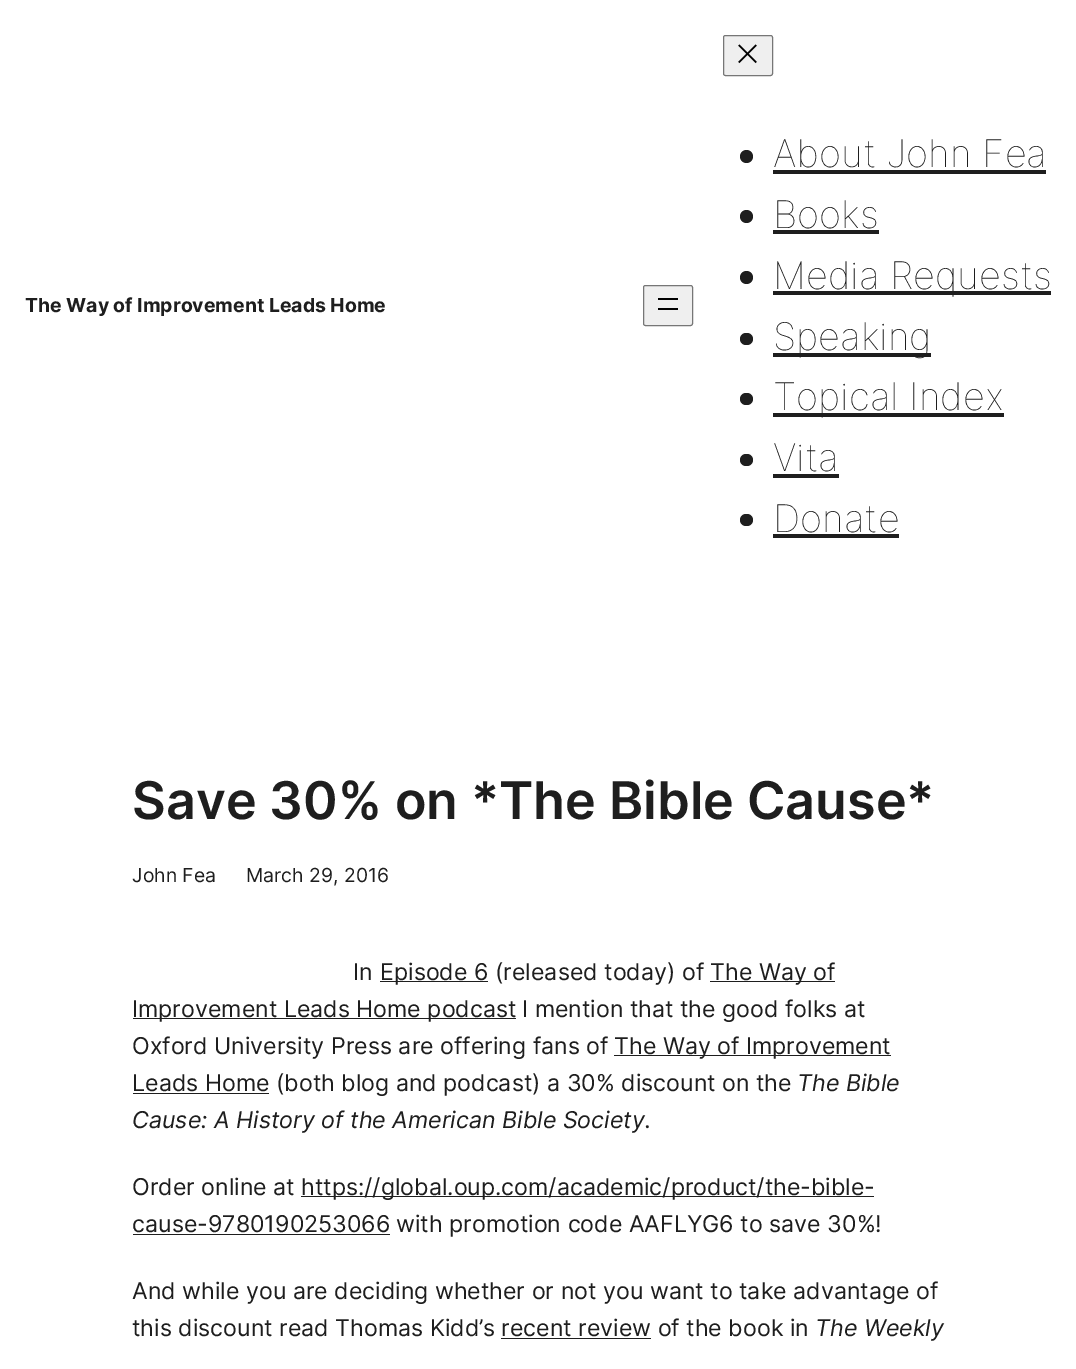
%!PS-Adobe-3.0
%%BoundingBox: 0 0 1076 1369
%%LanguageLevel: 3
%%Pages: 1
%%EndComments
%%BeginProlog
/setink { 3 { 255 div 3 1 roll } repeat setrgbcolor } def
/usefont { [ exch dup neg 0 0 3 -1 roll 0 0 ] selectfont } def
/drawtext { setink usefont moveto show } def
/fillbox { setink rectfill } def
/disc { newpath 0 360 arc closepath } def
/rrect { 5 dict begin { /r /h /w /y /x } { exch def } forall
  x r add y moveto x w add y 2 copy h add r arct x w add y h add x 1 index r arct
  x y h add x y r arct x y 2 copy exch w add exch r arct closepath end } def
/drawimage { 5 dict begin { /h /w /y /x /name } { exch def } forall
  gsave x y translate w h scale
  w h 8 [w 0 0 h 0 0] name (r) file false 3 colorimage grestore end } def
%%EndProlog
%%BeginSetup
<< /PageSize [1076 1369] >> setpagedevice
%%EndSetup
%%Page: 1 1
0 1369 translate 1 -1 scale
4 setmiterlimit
0 0 1076 1369 255 255 255 fillbox
(The Way of Improvement Leads Home) 25 312 /Inter-Bold 19.4 30 30 30 drawtext
239 239 239 setink
643.5 285.5 49 40 2 rrect gsave fill grestore
118 118 118 setink
stroke
658 298 20 2 0 0 0 fillbox
658 308 20 2 0 0 0 fillbox
239 239 239 setink
723.5 35.5 49 40 2 rrect gsave fill grestore
118 118 118 setink
stroke
(assets/img1.rgb) 738 44 19 20 drawimage
30 30 30 setink
746.5 156.5 6.5 disc fill
(About John Fea) 773 167 /Inter-Thin 38 30 30 30 drawtext
773 170 273 4 30 30 30 fillbox
746.5 216.5 6.5 disc fill
(Books) 773 228 /Inter-Thin 38 30 30 30 drawtext
773 230 106 4 30 30 30 fillbox
746.5 277.5 6.5 disc fill
773 291 278 4 30 30 30 fillbox
(Media Requests) 773 289 /Inter-Thin 38 30 30 30 drawtext
740 333 13 12 6 rrect fill
773 353 158 4 30 30 30 fillbox
(Speaking) 773 350 /Inter-Thin 38 30 30 30 drawtext
740 393 13 12 6 rrect fill
773 413 231 4 30 30 30 fillbox
(Topical Index) 773 410 /Inter-Thin 38 30 30 30 drawtext
740 454 13 12 6 rrect fill
(Vita) 773 471 /Inter-Thin 38 30 30 30 drawtext
773 474 66 4 30 30 30 fillbox
740 514 13 12 6 rrect fill
(Donate) 773 532 /Inter-Thin 38 30 30 30 drawtext
773 534 126 4 30 30 30 fillbox
(Save 30% on *The Bible Cause*) 132 819 /Inter-SemiBold 52 30 30 30 drawtext
(John Fea) 132 882 /Inter-Regular 19.4 30 30 30 drawtext
(March 29, 2016) 246 882 /Inter-Regular 19.4 30 30 30 drawtext
(In) 353 980 /Inter-Regular 23.2 30 30 30 drawtext
380 981 108 1 30 30 30 fillbox
(Episode 6 \(released today\) of) 380 980 /Inter-Regular 23.2 30 30 30 drawtext
710 981 125 1 30 30 30 fillbox
(The Way of) 710 980 /Inter-Regular 23.2 30 30 30 drawtext
133 1018 383 1 30 30 30 fillbox
(Improvement Leads Home podcast) 132 1017 /Inter-Regular 23.2 30 30 30 drawtext
(I mention that the good folks at) 522 1017 /Inter-Regular 23.2 30 30 30 drawtext
(Oxford University Press are offering fans of) 132 1054 /Inter-Regular 23.2 30 30 30 drawtext
614 1055 277 1 30 30 30 fillbox
(The Way of Improvement) 614 1054 /Inter-Regular 23.2 30 30 30 drawtext
133 1093 136 1 30 30 30 fillbox
(Leads Home \(both blog and podcast\) a 30% discount on the) 132 1091 /Inter-Regular 23.2 30 30 30 drawtext
(The Bible) 797 1091 /Inter-Italic 23.2 30 30 30 drawtext
(Cause: A History of the American Bible Society.) 132 1128 /Inter-Italic 23.2 30 30 30 drawtext
(Order online at) 132 1195 /Inter-Regular 23.2 30 30 30 drawtext
301 1196 573 1 30 30 30 fillbox
(https://global.oup.com/academic/product/the-bible-) 301 1195 /Inter-Regular 23.2 30 30 30 drawtext
(cause-9780190253066) 132 1232 /Inter-Regular 23.2 30 30 30 drawtext
133 1234 257 1 30 30 30 fillbox
(with promotion code AAFLYG6 to save 30%!) 396 1232 /Inter-Regular 23.2 30 30 30 drawtext
(And while you are deciding whether or not you want to take advantage of) 132 1299 /Inter-Regular 23.2 30 30 30 drawtext
(this discount read Thomas Kidd’s) 132 1336 /Inter-Regular 23.2 30 30 30 drawtext
(recent review of the book in) 501 1336 /Inter-Regular 23.2 30 30 30 drawtext
501 1338 150 1 30 30 30 fillbox
(The Weekly) 815 1336 /Inter-Italic 23.2 30 30 30 drawtext
showpage
%%EOF
